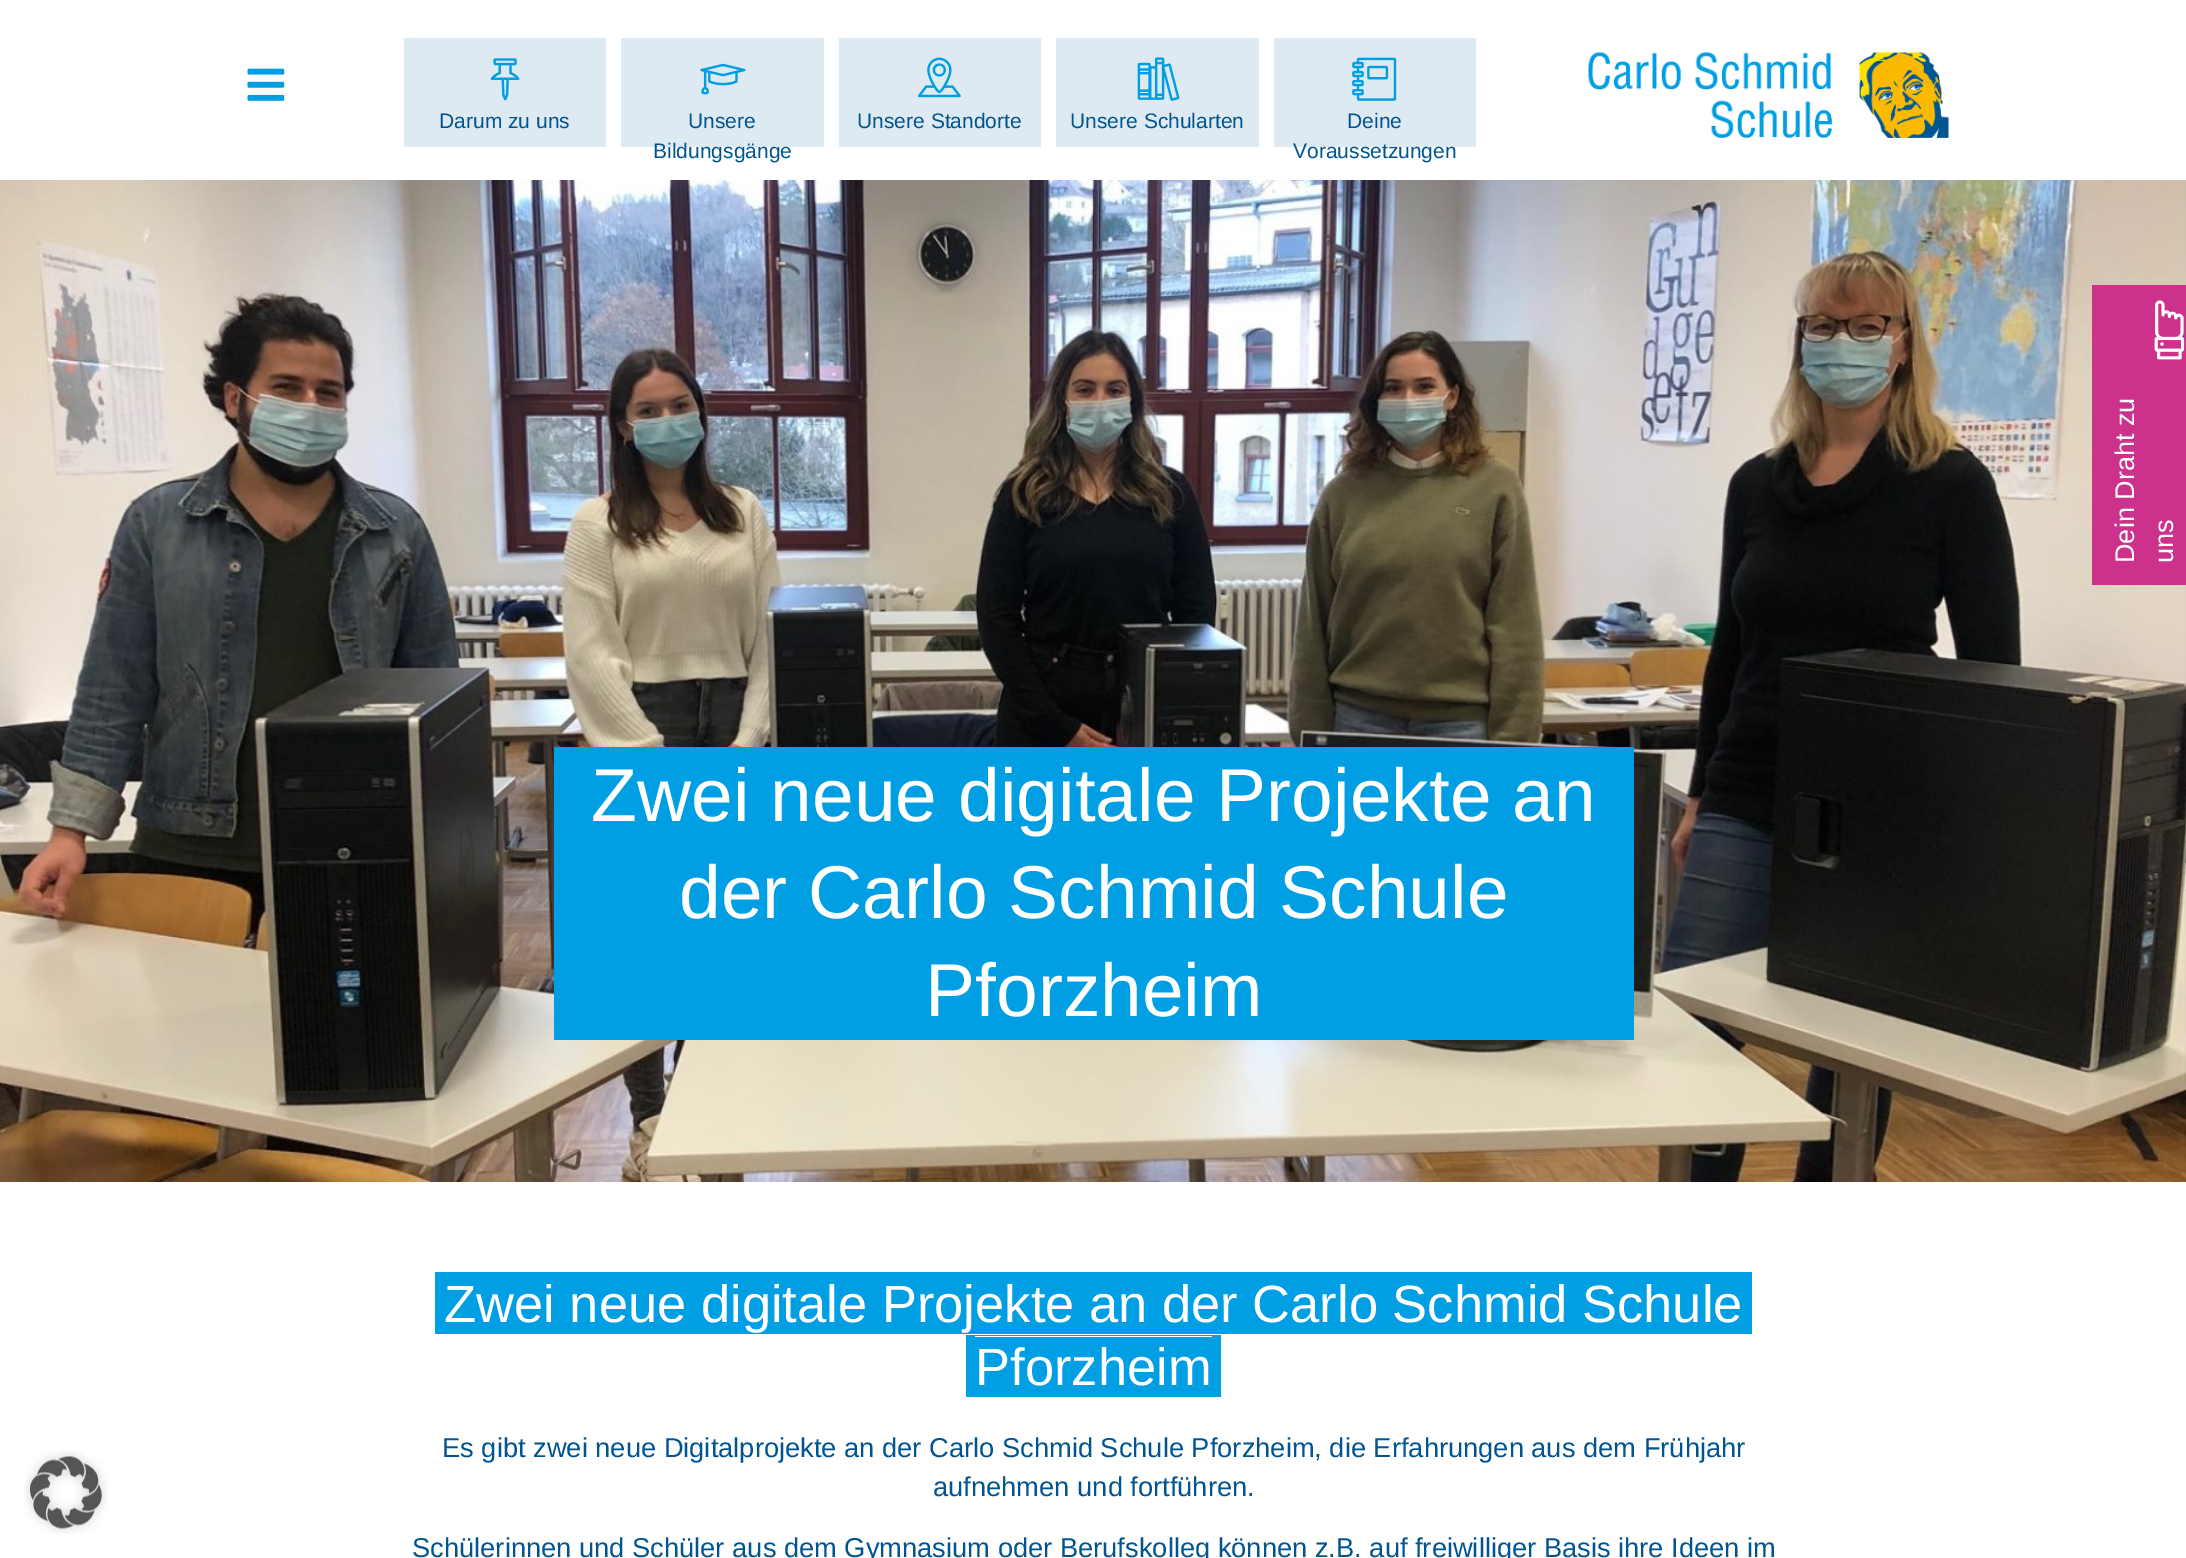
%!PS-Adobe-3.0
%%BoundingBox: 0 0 2186 1558
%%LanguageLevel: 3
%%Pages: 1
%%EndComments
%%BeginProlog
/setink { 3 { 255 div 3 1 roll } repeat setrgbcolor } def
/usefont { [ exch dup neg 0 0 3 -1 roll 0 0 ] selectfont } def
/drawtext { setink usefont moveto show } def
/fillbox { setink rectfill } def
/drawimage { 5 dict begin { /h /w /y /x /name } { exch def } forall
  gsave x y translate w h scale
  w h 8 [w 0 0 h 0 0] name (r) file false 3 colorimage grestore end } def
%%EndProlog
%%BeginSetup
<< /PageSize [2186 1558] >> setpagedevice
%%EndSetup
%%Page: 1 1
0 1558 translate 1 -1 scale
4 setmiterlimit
0 0 2186 1558 255 255 255 fillbox
(assets/img1.rgb) 24 1450 84 84 drawimage
(assets/img2.rgb) 247 68 38 33 drawimage
(assets/img3.rgb) 1588 52 361 86 drawimage
404 38 202 109 222 234 241 fillbox
(assets/img4.rgb) 490 58 30 43 drawimage
(Darum zu uns) 439 128 /LiberationSans-Regular 21 0 85 144 drawtext
621 38 203 109 222 234 241 fillbox
(assets/img5.rgb) 700 63 46 32 drawimage
(Unsere) 688 128 /LiberationSans-Regular 21 0 85 144 drawtext
(Bildungsgänge) 653 158 /LiberationSans-Regular 21 0 85 144 drawtext
839 38 202 109 222 234 241 fillbox
(assets/img6.rgb) 917 57 44 41 drawimage
(Unsere Standorte) 857 128 /LiberationSans-Regular 21 0 85 144 drawtext
1056 38 203 109 222 234 241 fillbox
(assets/img7.rgb) 1137 57 43 44 drawimage
(Unsere Schularten) 1070 128 /LiberationSans-Regular 21 0 85 144 drawtext
1274 38 202 109 222 234 241 fillbox
(assets/img8.rgb) 1352 57 45 44 drawimage
(Deine) 1347 128 /LiberationSans-Regular 21 0 85 144 drawtext
(Voraussetzungen) 1293 158 /LiberationSans-Regular 21 0 85 144 drawtext
(assets/img10.rgb) 0 180 2186 1002 drawimage
2092 285 94 300 204 50 140 fillbox
(assets/img9.rgb) 2154 300 31 60 drawimage
/LiberationSans-Regular 27 usefont
255 255 255 setink
gsave 2134 563 translate -90 rotate 0 0 moveto (Dein Draht zu) show grestore
gsave 2173 563 translate -90 rotate 0 0 moveto (uns) show grestore
554 747 1080 293 0 158 227 fillbox
(Zwei neue digitale Projekte an) 591 821 /LiberationSans-Regular 75 255 255 255 drawtext
(der Carlo Schmid Schule) 679 918 /LiberationSans-Regular 75 255 255 255 drawtext
(Pforzheim) 925 1016 /LiberationSans-Regular 75 255 255 255 drawtext
0 158 227 setink
435 1272 moveto 435 1334 lineto 1737 1334 lineto 1737 1332 lineto 444 1332 lineto 444 1274 lineto 1737 1274 lineto 1737 1272 lineto closepath fill
450 1272 moveto 450 1274 lineto 1743 1274 lineto 1743 1332 lineto 450 1332 lineto 450 1334 lineto 1752 1334 lineto 1752 1272 lineto closepath fill
444 1274 1299 58 0 158 227 fillbox
(Zwei neue digitale Projekte an der Carlo Schmid Schule) 444 1322 /LiberationSans-Regular 52.5 255 255 255 drawtext
0 158 227 setink
966 1335 moveto 966 1397 lineto 1206 1397 lineto 1206 1395 lineto 975 1395 lineto 975 1336 lineto 1206 1336 lineto 1206 1335 lineto closepath fill
981 1335 moveto 981 1336 lineto 1212 1336 lineto 1212 1395 lineto 981 1395 lineto 981 1397 lineto 1221 1397 lineto 1221 1335 lineto closepath fill
975 1337 237 58 0 158 227 fillbox
(Pforzheim) 975 1385 /LiberationSans-Regular 52.5 255 255 255 drawtext
(Es gibt zwei neue Digitalprojekte an der Carlo Schmid Schule Pforzheim, die Erfahrungen aus dem Frühjahr) 442 1457 /LiberationSans-Regular 27.3 0 85 144 drawtext
(aufnehmen und fortführen.) 933 1496 /LiberationSans-Regular 27.3 0 85 144 drawtext
(Schülerinnen und Schüler aus dem Gymnasium oder Berufskolleg können z.B. auf freiwilliger Basis ihre Ideen im) 412 1557 /LiberationSans-Regular 27.3 0 85 144 drawtext
showpage
%%EOF
